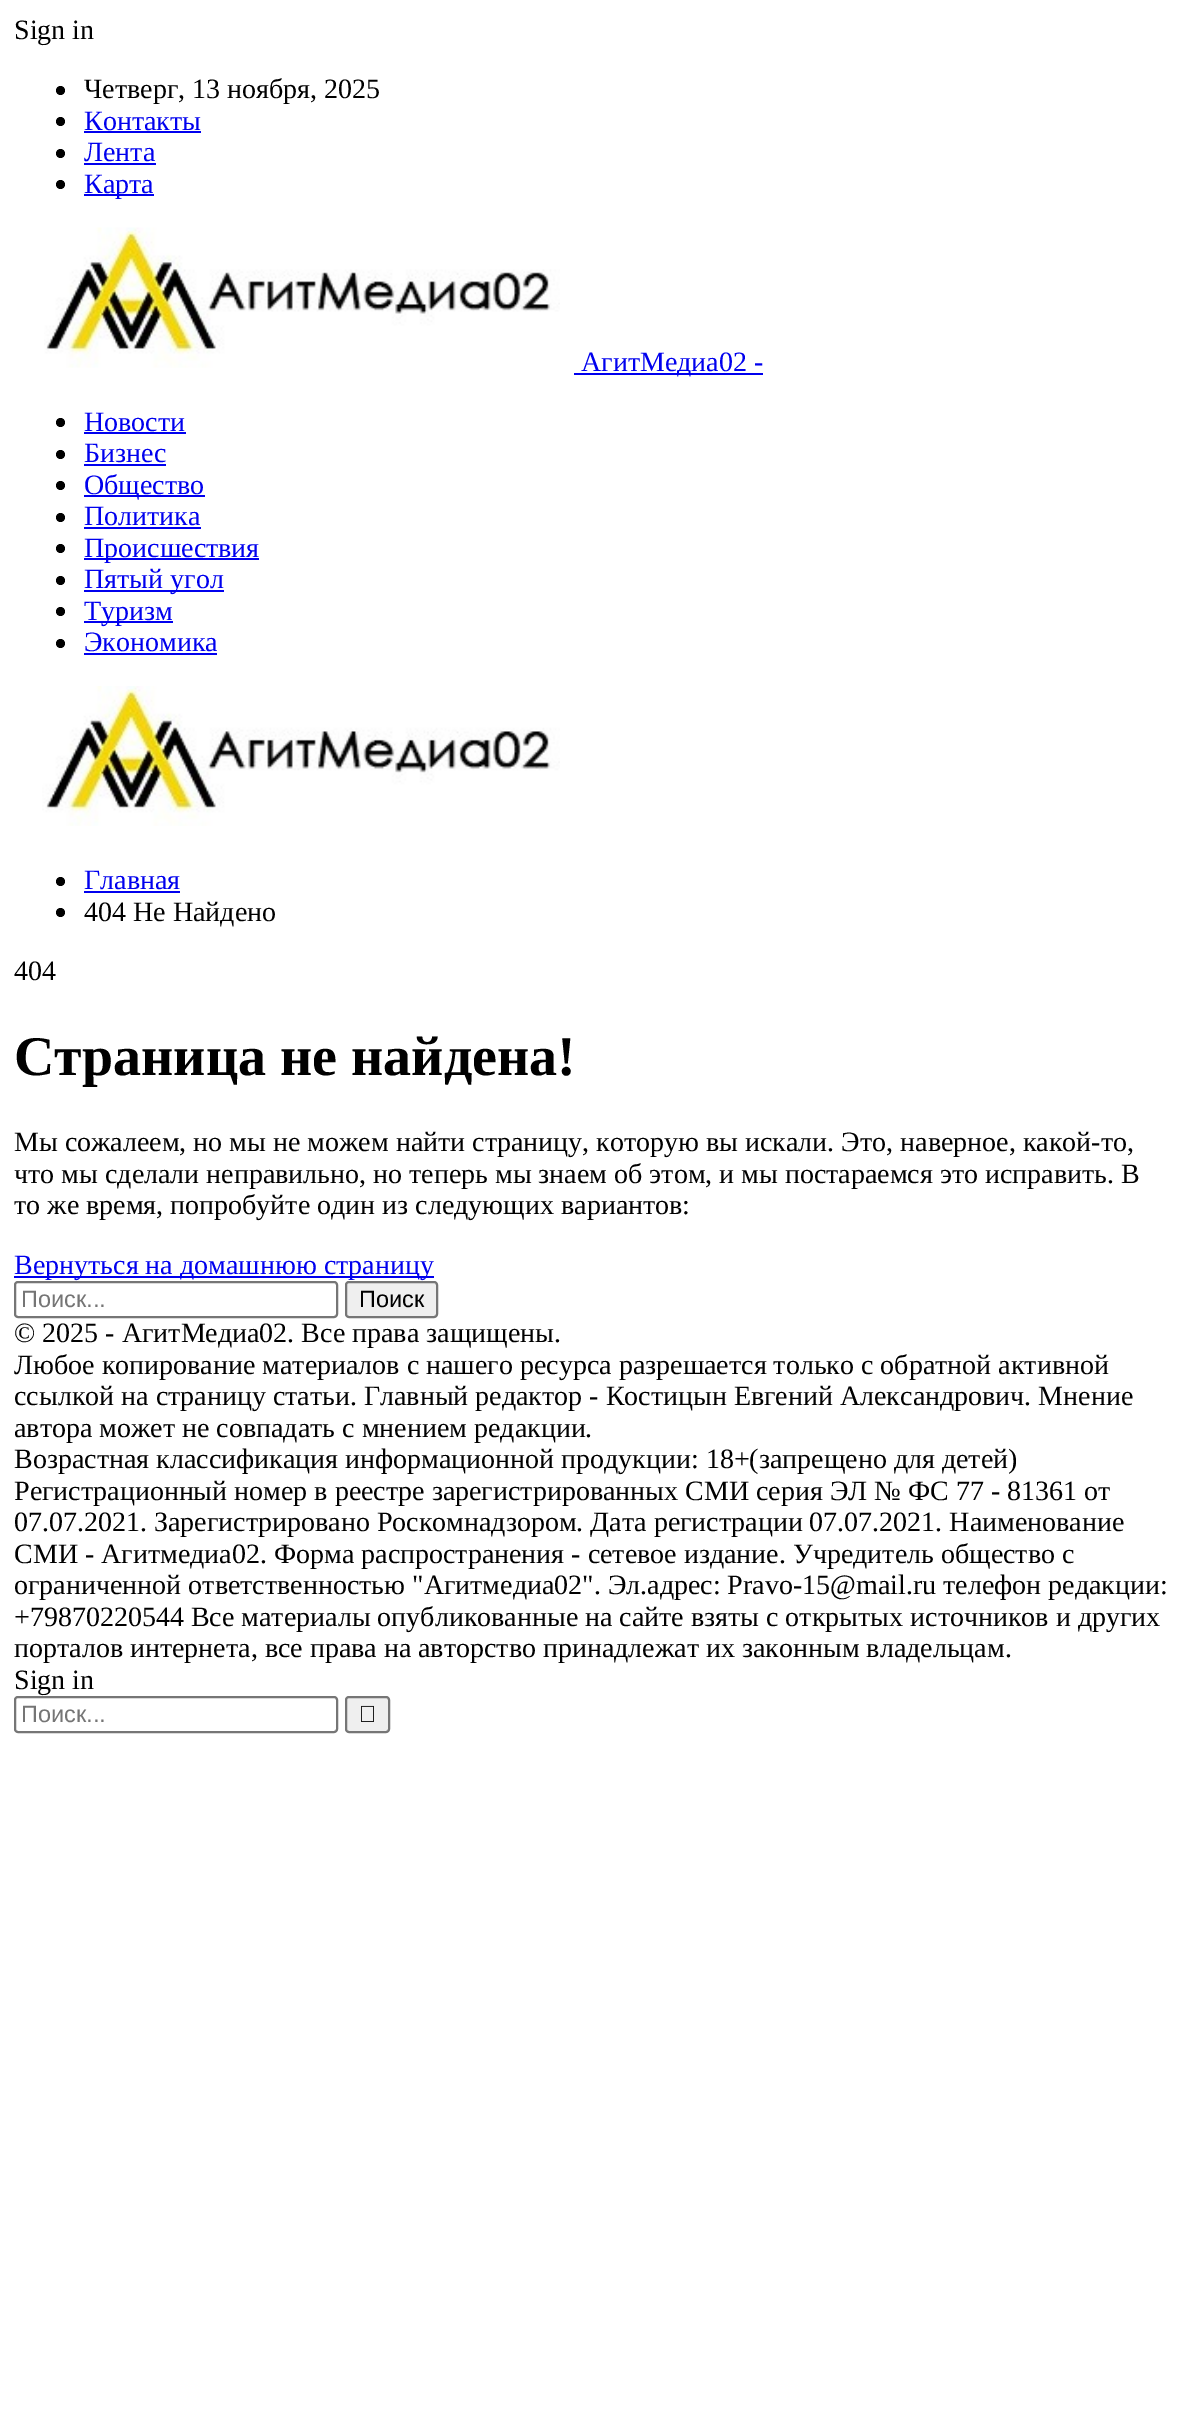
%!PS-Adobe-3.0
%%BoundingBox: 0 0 1182 2409
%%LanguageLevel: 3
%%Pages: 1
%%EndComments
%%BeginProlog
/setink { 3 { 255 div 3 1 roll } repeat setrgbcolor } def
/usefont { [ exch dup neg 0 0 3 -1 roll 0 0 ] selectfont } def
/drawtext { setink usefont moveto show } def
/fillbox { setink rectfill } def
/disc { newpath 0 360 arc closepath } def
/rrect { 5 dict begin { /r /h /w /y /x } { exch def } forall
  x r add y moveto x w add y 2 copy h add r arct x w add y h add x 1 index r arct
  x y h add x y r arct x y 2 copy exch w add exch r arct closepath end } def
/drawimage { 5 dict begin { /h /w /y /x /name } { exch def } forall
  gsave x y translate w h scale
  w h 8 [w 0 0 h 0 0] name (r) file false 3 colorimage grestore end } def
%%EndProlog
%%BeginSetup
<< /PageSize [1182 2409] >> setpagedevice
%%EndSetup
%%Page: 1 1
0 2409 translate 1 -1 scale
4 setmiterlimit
0 0 1182 2409 255 255 255 fillbox
(Sign in) 14 39 /LiberationSerif-Regular 28 0 0 0 drawtext
60.5 90.5 4.5 disc fill
(Четверг, 13 ноября, 2025) 84 98 /LiberationSerif-Regular 28 0 0 0 drawtext
60.5 121.5 4.5 disc fill
(Контакты) 84 130 /LiberationSerif-Regular 28 0 0 238 drawtext
84 131 117 2 0 0 238 fillbox
0 0 0 setink
60.5 153.5 4.5 disc fill
(Лента) 84 161 /LiberationSerif-Regular 28 0 0 238 drawtext
84 163 72 2 0 0 238 fillbox
0 0 0 setink
60.5 184.5 4.5 disc fill
84 194 70 2 0 0 238 fillbox
(Карта) 84 193 /LiberationSerif-Regular 28 0 0 238 drawtext
(assets/img1.rgb) 44 227 516 141 drawimage
574 373 189 2 0 0 238 fillbox
(АгитМедиа02 -) 581 371 /LiberationSerif-Regular 28 0 0 238 drawtext
0 0 0 setink
60.5 422.5 4.5 disc fill
(Новости) 84 431 /LiberationSerif-Regular 28 0 0 238 drawtext
84 432 102 2 0 0 238 fillbox
0 0 0 setink
60.5 454.5 4.5 disc fill
(Бизнес) 84 462 /LiberationSerif-Regular 28 0 0 238 drawtext
84 464 82 2 0 0 238 fillbox
0 0 0 setink
60.5 485.5 4.5 disc fill
84 495 121 2 0 0 238 fillbox
(Общество) 84 494 /LiberationSerif-Regular 28 0 0 238 drawtext
0 0 0 setink
60.5 517.5 4.5 disc fill
(Политика) 84 525 /LiberationSerif-Regular 28 0 0 238 drawtext
84 527 117 2 0 0 238 fillbox
0 0 0 setink
60.5 548.5 4.5 disc fill
84 558 175 2 0 0 238 fillbox
(Происшествия) 84 557 /LiberationSerif-Regular 28 0 0 238 drawtext
0 0 0 setink
60.5 580.5 4.5 disc fill
84 590 140 2 0 0 238 fillbox
(Пятый угол) 84 588 /LiberationSerif-Regular 28 0 0 238 drawtext
0 0 0 setink
60.5 611.5 4.5 disc fill
84 621 89 2 0 0 238 fillbox
(Туризм) 84 620 /LiberationSerif-Regular 28 0 0 238 drawtext
0 0 0 setink
60.5 643.5 4.5 disc fill
(Экономика) 84 651 /LiberationSerif-Regular 28 0 0 238 drawtext
84 653 133 2 0 0 238 fillbox
(assets/img2.rgb) 42 686 518 140 drawimage
0 0 0 setink
60.5 881.5 4.5 disc fill
(Главная) 84 889 /LiberationSerif-Regular 28 0 0 238 drawtext
84 891 96 2 0 0 238 fillbox
0 0 0 setink
60.5 912.5 4.5 disc fill
(404 Не Найдено) 84 921 /LiberationSerif-Regular 28 0 0 0 drawtext
(404) 14 980 /LiberationSerif-Regular 28 0 0 0 drawtext
(Страница не найдена!) 14 1075 /LiberationSerif-Bold 56 0 0 0 drawtext
(Мы сожалеем, но мы не можем найти страницу, которую вы искали. Это, наверное, какой-то,) 14 1151 /LiberationSerif-Regular 28 0 0 0 drawtext
(что мы сделали неправильно, но теперь мы знаем об этом, и мы постараемся это исправить. В) 14 1183 /LiberationSerif-Regular 28 0 0 0 drawtext
(то же время, попробуйте один из следующих вариантов:) 14 1214 /LiberationSerif-Regular 28 0 0 0 drawtext
14 1276 420 2 0 0 238 fillbox
(Вернуться на домашнюю страницу) 14 1274 /LiberationSerif-Regular 28 0 0 238 drawtext
118 118 118 setink
2 setlinewidth
15 1282 322 35 3 rrect stroke
(Поиск...) 21 1307 /LiberationSans-Regular 23.5 117 117 117 drawtext
239 239 239 setink
346 1282 91 35 3 rrect gsave fill grestore
118 118 118 setink
stroke
(Поиск) 359 1307 /LiberationSans-Regular 23.5 0 0 0 drawtext
(© 2025 - АгитМедиа02. Все права защищены.) 14 1342 /LiberationSerif-Regular 28 0 0 0 drawtext
(Любое копирование материалов с нашего ресурса разрешается только с обратной активной) 14 1374 /LiberationSerif-Regular 28 0 0 0 drawtext
(ссылкой на страницу статьи. Главный редактор - Костицын Евгений Александрович. Мнение) 14 1405 /LiberationSerif-Regular 28 0 0 0 drawtext
(автора может не совпадать с мнением редакции.) 14 1437 /LiberationSerif-Regular 28 0 0 0 drawtext
(Возрастная классификация информационной продукции: 18+\(запрещено для детей\)) 14 1468 /LiberationSerif-Regular 28 0 0 0 drawtext
(Регистрационный номер в реестре зарегистрированных СМИ серия ЭЛ № ФС 77 - 81361 от) 14 1500 /LiberationSerif-Regular 28 0 0 0 drawtext
(07.07.2021. Зарегистрировано Роскомнадзором. Дата регистрации 07.07.2021. Наименование) 14 1531 /LiberationSerif-Regular 28 0 0 0 drawtext
(СМИ - Агитмедиа02. Форма распространения - сетевое издание. Учредитель общество с) 14 1563 /LiberationSerif-Regular 28 0 0 0 drawtext
(ограниченной ответственностью "Агитмедиа02". Эл.адрес: Pravo-15@mail.ru телефон редакции:) 14 1594 /LiberationSerif-Regular 28 0 0 0 drawtext
(+79870220544 Все материалы опубликованные на сайте взяты с открытых источников и других) 14 1626 /LiberationSerif-Regular 28 0 0 0 drawtext
(порталов интернета, все права на авторство принадлежат их законным владельцам.) 14 1657 /LiberationSerif-Regular 28 0 0 0 drawtext
(Sign in) 14 1689 /LiberationSerif-Regular 28 0 0 0 drawtext
118 118 118 setink
15 1697 322 35 3 rrect stroke
(Поиск...) 21 1722 /LiberationSans-Regular 23.5 117 117 117 drawtext
239 239 239 setink
346 1697 43 35 3 rrect gsave fill grestore
118 118 118 setink
stroke
(assets/img3.rgb) 361 1705 13 17 drawimage
showpage
%%EOF
